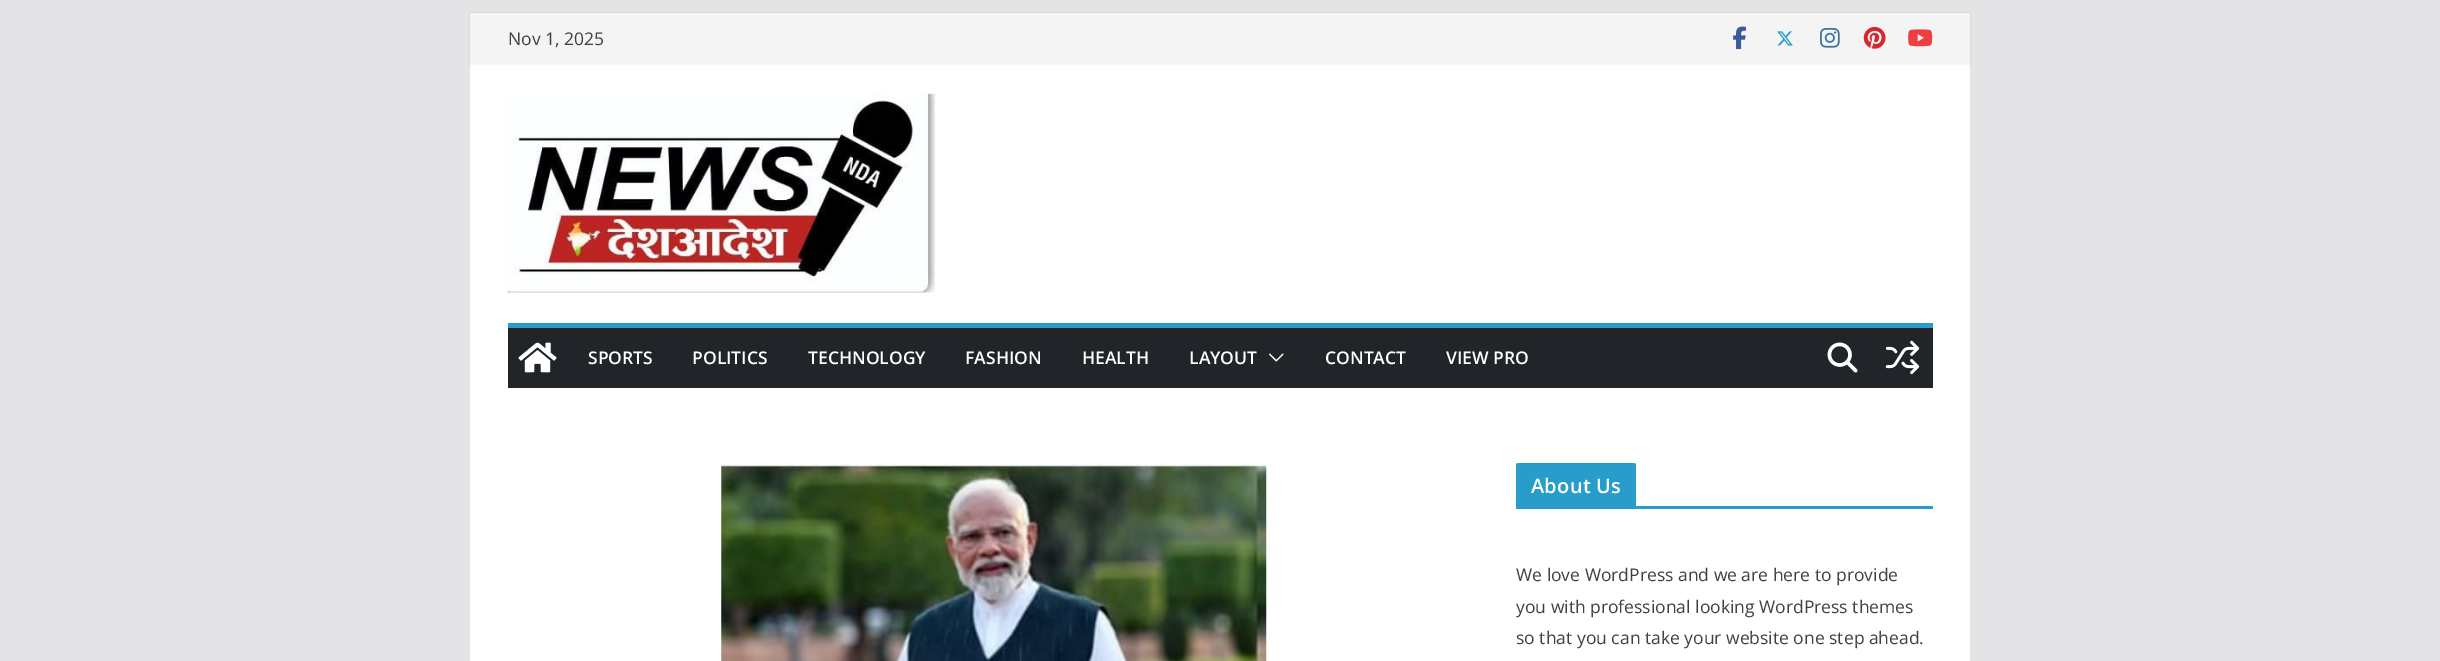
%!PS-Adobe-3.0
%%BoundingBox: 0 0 2440 661
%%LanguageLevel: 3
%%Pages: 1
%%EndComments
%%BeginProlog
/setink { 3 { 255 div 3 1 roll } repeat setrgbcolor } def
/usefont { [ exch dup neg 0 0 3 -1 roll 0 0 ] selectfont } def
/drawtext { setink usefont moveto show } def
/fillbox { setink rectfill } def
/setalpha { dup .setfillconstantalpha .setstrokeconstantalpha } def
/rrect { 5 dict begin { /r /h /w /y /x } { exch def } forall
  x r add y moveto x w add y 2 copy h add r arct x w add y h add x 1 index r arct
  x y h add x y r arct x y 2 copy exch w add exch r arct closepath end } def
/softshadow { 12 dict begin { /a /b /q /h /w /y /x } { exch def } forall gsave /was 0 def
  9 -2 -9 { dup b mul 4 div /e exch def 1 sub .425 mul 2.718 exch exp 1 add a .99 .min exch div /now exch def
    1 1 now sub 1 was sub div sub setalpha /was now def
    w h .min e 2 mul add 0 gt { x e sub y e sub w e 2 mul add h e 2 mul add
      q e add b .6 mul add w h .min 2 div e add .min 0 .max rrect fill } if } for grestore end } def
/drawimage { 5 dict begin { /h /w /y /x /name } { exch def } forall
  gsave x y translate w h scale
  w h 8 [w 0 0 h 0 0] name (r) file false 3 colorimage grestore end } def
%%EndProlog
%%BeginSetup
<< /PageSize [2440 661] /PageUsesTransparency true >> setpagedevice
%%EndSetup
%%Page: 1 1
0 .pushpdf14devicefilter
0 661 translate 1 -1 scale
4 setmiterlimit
0 0 2440 661 228 228 231 fillbox
470 64 1500 597 255 255 255 fillbox
0 0 0 setink
470 13 1500 51 0 1 0.1 softshadow
470 13 1500 51 244 244 245 fillbox
(Nov 1, 2025) 508 45 /OpenSans-Regular 17.5 63 63 70 drawtext
(assets/img1.rgb) 1733 26 13 24 drawimage
(assets/img2.rgb) 1777 31 16 15 drawimage
(assets/img3.rgb) 1820 28 20 20 drawimage
(assets/img4.rgb) 1863 26 23 23 drawimage
(assets/img5.rgb) 1908 29 25 18 drawimage
(assets/img6.rgb) 507 93 428 200 drawimage
508 328 1425 60 33 37 41 fillbox
508 323 1425 5 40 157 204 fillbox
(assets/img7.rgb) 518 342 39 31 drawimage
(SPORTS) 588 364 /OpenSans-SemiBold 17.5 255 255 255 drawtext
(POLITICS) 692 364 /OpenSans-SemiBold 17.5 255 255 255 drawtext
(TECHNOLOGY) 808 364 /OpenSans-SemiBold 17.5 255 255 255 drawtext
(FASHION) 965 364 /OpenSans-SemiBold 17.5 255 255 255 drawtext
(HEALTH) 1082 364 /OpenSans-SemiBold 17.5 255 255 255 drawtext
(LAYOUT) 1189 364 /OpenSans-SemiBold 17.5 255 255 255 drawtext
(assets/img8.rgb) 1269 353 15 9 drawimage
(CONTACT) 1325 364 /OpenSans-SemiBold 17.5 255 255 255 drawtext
(VIEW PRO) 1446 364 /OpenSans-SemiBold 17.5 255 255 255 drawtext
(assets/img9.rgb) 1827 342 31 31 drawimage
(assets/img10.rgb) 1885 340 35 35 drawimage
(assets/img11.rgb) 721 463 546 198 drawimage
1516 506 417 3 40 157 204 fillbox
1518.5 463 moveto 1633.5 463 lineto 1635 463 1636 464 1636 465.5 curveto 1636 506 lineto 1516 506 lineto 1516 465.5 lineto 1516 464 1517 463 1518.5 463 curveto closepath fill
/OpenSans-SemiBold 20 usefont
255 255 255 setink
1531 493 moveto 0.25 0 (About Us) ashow
(We love WordPress and we are here to provide) 1516 581 /OpenSans-Regular 17.5 63 63 70 drawtext
(you with professional looking WordPress themes) 1516 613 /OpenSans-Regular 17.5 63 63 70 drawtext
(so that you can take your website one step ahead.) 1516 644 /OpenSans-Regular 17.5 63 63 70 drawtext
.poppdf14devicefilter showpage
%%EOF
